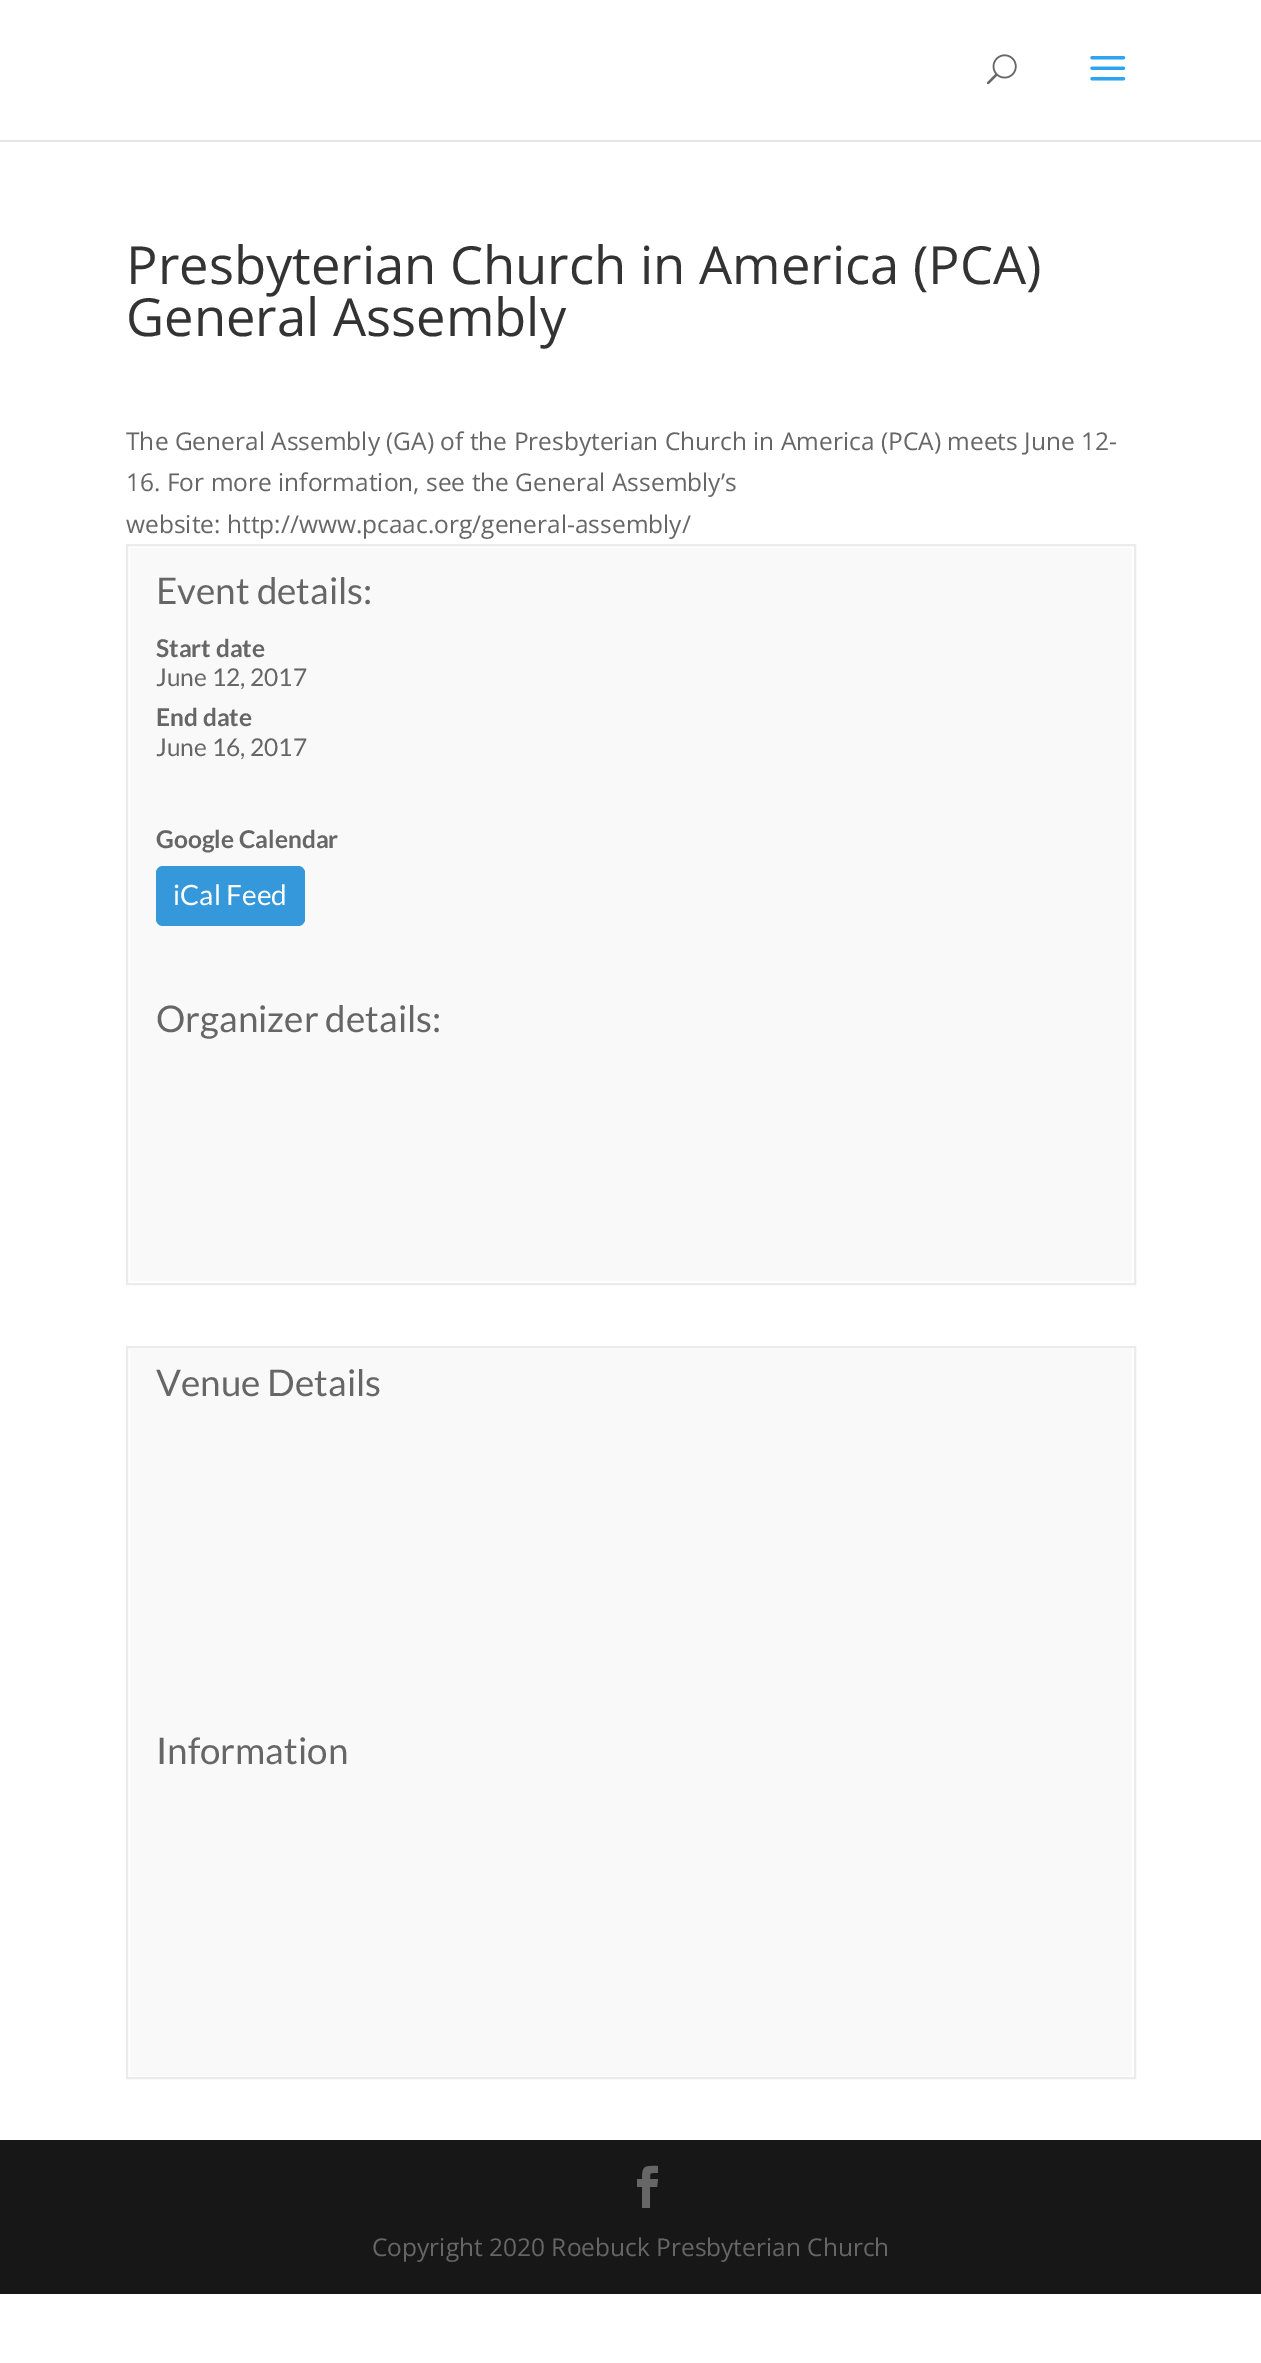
%!PS-Adobe-3.0
%%BoundingBox: 0 0 1261 2363
%%LanguageLevel: 3
%%Pages: 1
%%EndComments
%%BeginProlog
/setink { 3 { 255 div 3 1 roll } repeat setrgbcolor } def
/usefont { [ exch dup neg 0 0 3 -1 roll 0 0 ] selectfont } def
/drawtext { setink usefont moveto show } def
/fillbox { setink rectfill } def
/rrect { 5 dict begin { /r /h /w /y /x } { exch def } forall
  x r add y moveto x w add y 2 copy h add r arct x w add y h add x 1 index r arct
  x y h add x y r arct x y 2 copy exch w add exch r arct closepath end } def
/drawimage { 5 dict begin { /h /w /y /x /name } { exch def } forall
  gsave x y translate w h scale
  w h 8 [w 0 0 h 0 0] name (r) file false 3 colorimage grestore end } def
%%EndProlog
%%BeginSetup
<< /PageSize [1261 2363] >> setpagedevice
%%EndSetup
%%Page: 1 1
0 2363 translate 1 -1 scale
4 setmiterlimit
0 0 1261 2363 255 255 255 fillbox
230 230 230 setink
0 140 moveto 0 142 lineto 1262 142 lineto 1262 2 lineto 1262 140 lineto closepath fill
(assets/img1.rgb) 986 54 31 31 drawimage
(assets/img2.rgb) 1090 56 36 25 drawimage
(Presbyterian Church in America \(PCA\)) 126 284 /OpenSans-Regular 52.5 51 51 51 drawtext
(General Assembly) 126 336 /OpenSans-Regular 52.5 51 51 51 drawtext
(The General Assembly \(GA\) of the Presbyterian Church in America \(PCA\) meets June 12-) 126 450 /OpenSans-Regular 24.5 102 102 102 drawtext
(16. For more information, see the General Assembly’s) 126 491 /OpenSans-Regular 24.5 102 102 102 drawtext
(website: http://www.pcaac.org/general-assembly/) 126 533 /OpenSans-Regular 24.5 102 102 102 drawtext
235 235 235 setink
2 setlinewidth
127 545 1008 739 rectstroke
130 548 1002 733 249 249 249 fillbox
(Event details:) 156 604 /Lato-Regular 36.75 102 102 102 drawtext
(Start date) 156 657 /Lato-Bold 24.5 102 102 102 drawtext
(June 12, 2017) 156 686 /Lato-Regular 24.5 102 102 102 drawtext
(End date) 156 726 /Lato-Bold 24.5 102 102 102 drawtext
(June 16, 2017) 156 756 /Lato-Regular 24.5 102 102 102 drawtext
(Google Calendar) 156 848 /Lato-Bold 24.5 102 102 102 drawtext
52 152 219 setink
156 866 149 60 7 rrect fill
(iCal Feed) 173 905 /Lato-Regular 28 255 255 255 drawtext
(Organizer details:) 156 1032 /Lato-Regular 36.75 102 102 102 drawtext
235 235 235 setink
127 1347 1008 731 rectstroke
130 1349 1002 727 249 249 249 fillbox
(Venue Details) 156 1396 /Lato-Regular 36.75 102 102 102 drawtext
(Information) 156 1764 /Lato-Regular 36.75 102 102 102 drawtext
0 2140 1261 154 23 23 23 fillbox
102 102 102 setink
642 2208 moveto 650 2208 lineto 650 2187 lineto 657 2187 lineto 658 2179 lineto 650 2179 lineto 650 2172 650 2173 658 2173 curveto 658 2166 lineto 645 2166 642 2165 642 2179 curveto 637 2179 lineto 637 2187 lineto 642 2187 lineto closepath fill
(Copyright 2020 Roebuck Presbyterian Church) 372 2256 /OpenSans-Regular 24.5 102 102 102 drawtext
showpage
%%EOF
